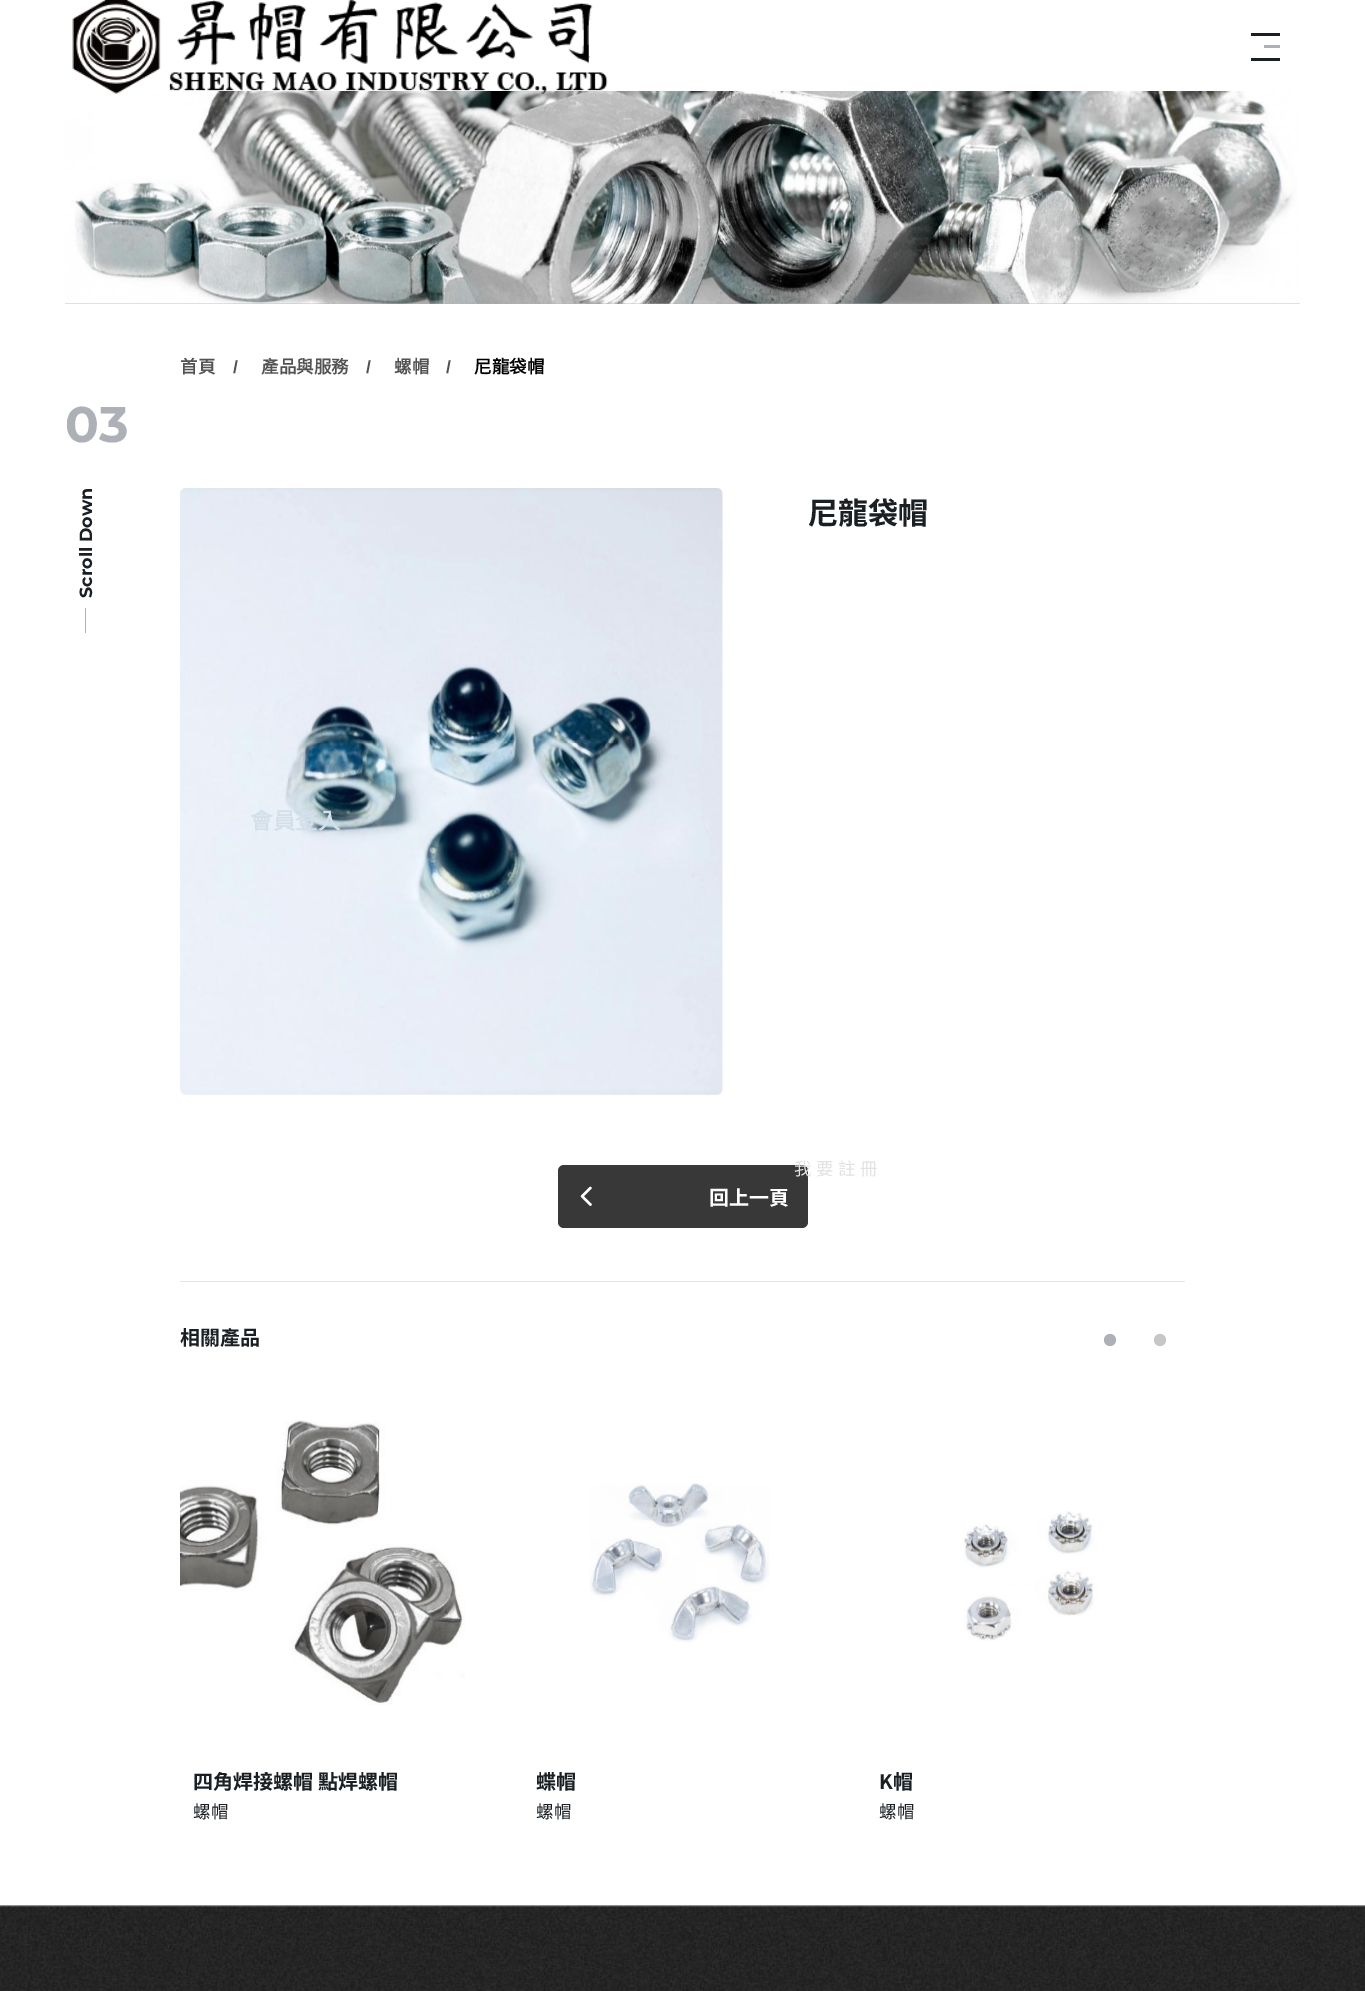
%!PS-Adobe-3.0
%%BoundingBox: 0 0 1365 1991
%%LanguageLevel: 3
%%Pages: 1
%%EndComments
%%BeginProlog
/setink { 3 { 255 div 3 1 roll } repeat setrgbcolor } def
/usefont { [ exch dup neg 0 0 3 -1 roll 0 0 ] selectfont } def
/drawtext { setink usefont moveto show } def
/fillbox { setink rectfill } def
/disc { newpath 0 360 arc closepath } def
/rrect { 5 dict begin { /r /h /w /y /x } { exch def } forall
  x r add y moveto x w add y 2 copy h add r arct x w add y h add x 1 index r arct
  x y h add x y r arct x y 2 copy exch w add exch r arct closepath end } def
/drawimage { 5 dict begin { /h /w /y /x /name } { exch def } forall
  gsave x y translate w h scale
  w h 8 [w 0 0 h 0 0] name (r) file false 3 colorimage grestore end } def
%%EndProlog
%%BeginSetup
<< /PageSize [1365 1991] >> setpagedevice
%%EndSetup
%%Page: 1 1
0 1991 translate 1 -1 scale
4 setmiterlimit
0 0 1365 1991 255 255 255 fillbox
65 303 1235 1 174 176 183 fillbox
(assets/img2.rgb) 65 91 1235 213 drawimage
(assets/img1.rgb) 72 0 536 94 drawimage
1251 33 29 3 25 31 35 fillbox
1264 45 16 3 174 176 183 fillbox
1251 58 29 3 25 31 35 fillbox
(首頁) 180 373 /NotoSansCJKTC-Bold 17.5 83 83 83 drawtext
(/) 233 373 /LiberationSans-Bold 17.5 83 83 83 drawtext
(產品與服務) 261 373 /NotoSansCJKTC-Bold 17.5 83 83 83 drawtext
(/) 366 373 /LiberationSans-Bold 17.5 83 83 83 drawtext
(螺帽) 394 373 /NotoSansCJKTC-Bold 17.5 83 83 83 drawtext
(/) 446 373 /LiberationSans-Bold 17.5 83 83 83 drawtext
(尼龍袋帽) 474 373 /NotoSansCJKTC-Bold 17.5 0 0 0 drawtext
(03) 65 442 /Montserrat-Bold 50 174 176 183 drawtext
/Montserrat-Bold 17.5 usefont
25 31 35 setink
gsave 92 598 translate -90 rotate 0 0 moveto (Scroll Down) show grestore
85 608 1 25 179 179 179 fillbox
(assets/img3.rgb) 180 488 543 607 drawimage
(尼龍袋帽) 808 524 /NotoSansTC-Bold 30 25 31 35 drawtext
180 1281 1005 1 229 228 228 fillbox
56 56 56 setink
558 1165 250 63 6 rrect fill
(assets/img4.rgb) 580 1186 12 20 drawimage
(回上一頁) 709 1205 /NotoSansTC-Bold 20 255 255 255 drawtext
(相關產品) 180 1345 /NotoSansTC-Bold 20 25 31 35 drawtext
174 176 183 setink
1110 1340 6 disc fill
198 198 198 setink
1160 1340 6 disc fill
(assets/img5.rgb) 180 1420 285 285 drawimage
(四角焊接螺帽 點焊螺帽) 193 1789 /NotoSansTC-Bold 20 25 31 35 drawtext
(螺帽) 193 1818 /NotoSansCJKTC-Regular 17.5 25 31 35 drawtext
(assets/img6.rgb) 590 1483 180 160 drawimage
(蝶帽) 536 1789 /NotoSansTC-Bold 20 25 31 35 drawtext
(螺帽) 536 1818 /NotoSansCJKTC-Regular 17.5 25 31 35 drawtext
(assets/img7.rgb) 963 1511 132 130 drawimage
(K帽) 879 1789 /NotoSansTC-Bold 20 25 31 35 drawtext
(螺帽) 879 1818 /NotoSansCJKTC-Regular 17.5 25 31 35 drawtext
(會員登入) 250 829 /NotoSansCJKTC-Bold 22.5 212 224 233 drawtext
/NotoSansCJKTC-Regular 17.5 usefont
226 226 226 setink
794 1175 moveto 0.5 0 32 (我 要 註 冊) widthshow
(assets/img8.rgb) 0 1905 1365 86 drawimage
showpage
%%EOF
